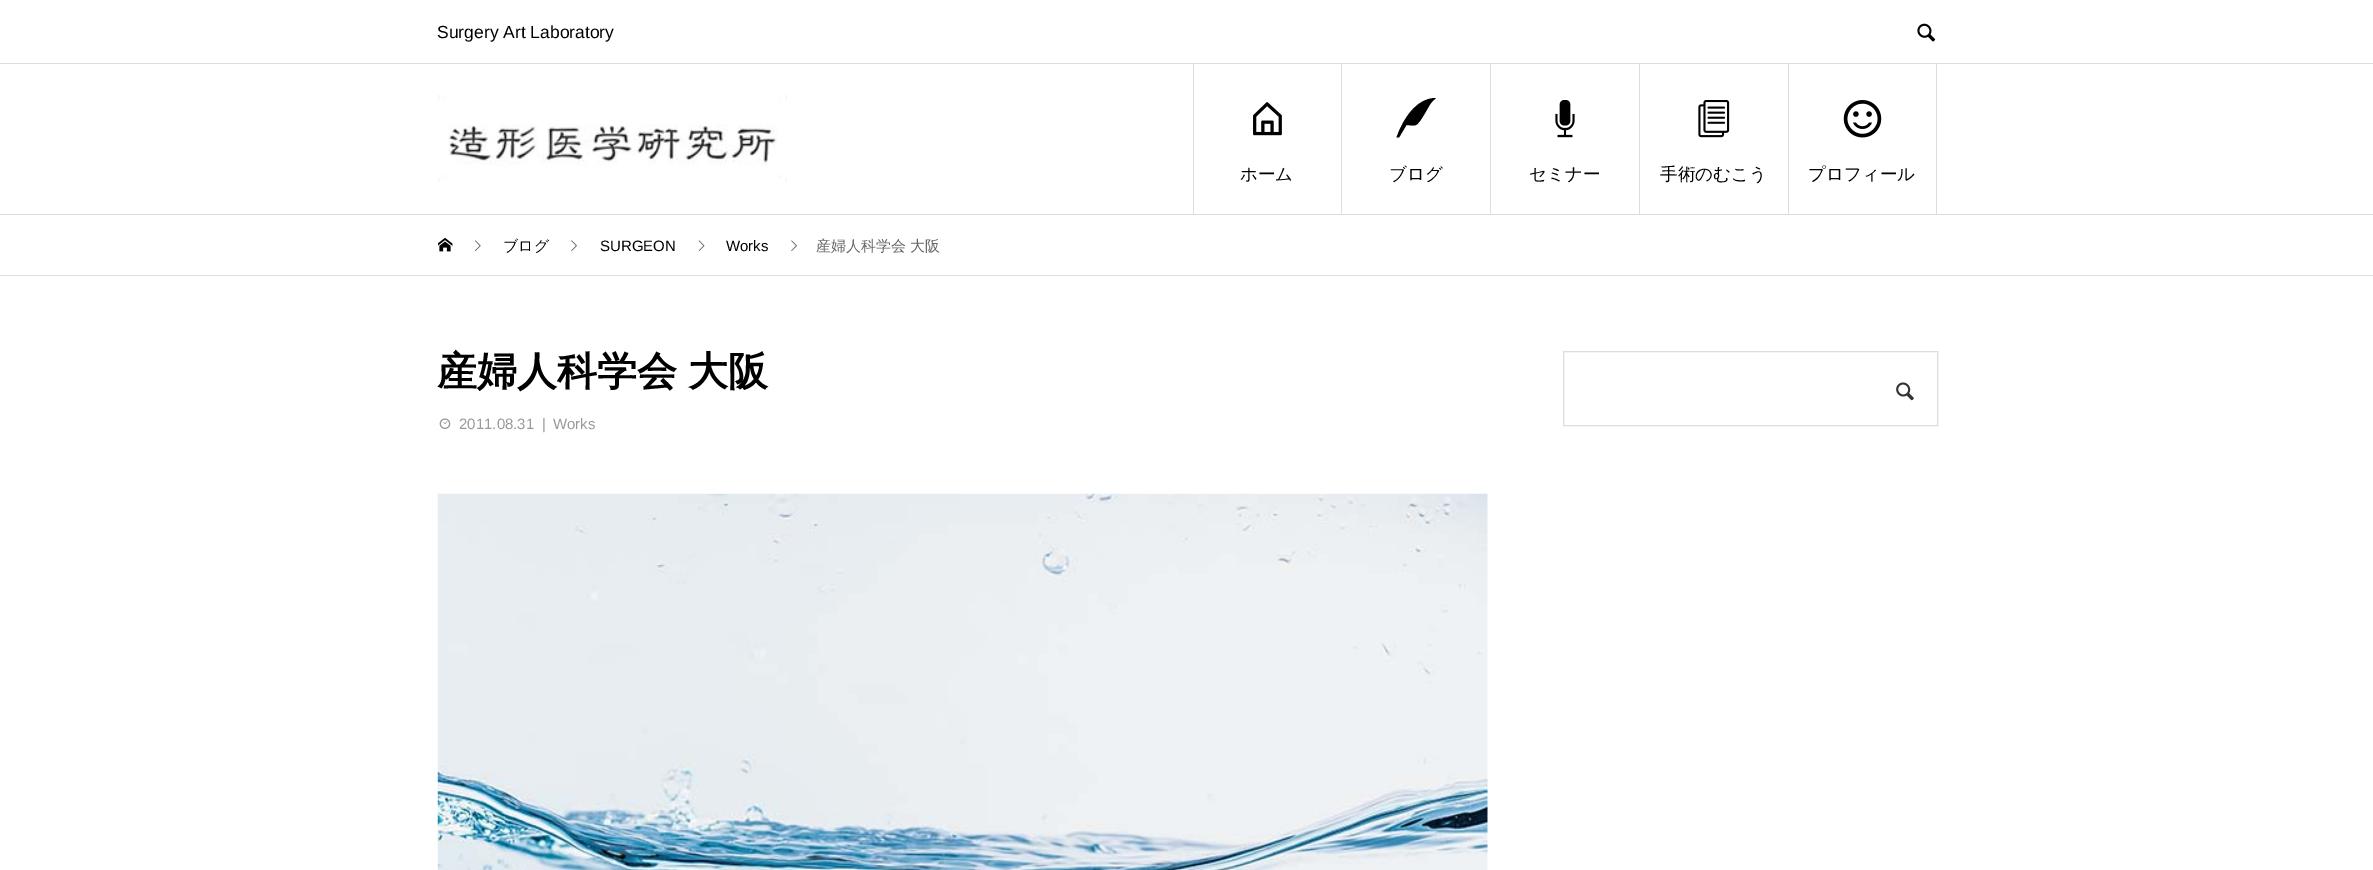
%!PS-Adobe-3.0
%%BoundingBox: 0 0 2373 870
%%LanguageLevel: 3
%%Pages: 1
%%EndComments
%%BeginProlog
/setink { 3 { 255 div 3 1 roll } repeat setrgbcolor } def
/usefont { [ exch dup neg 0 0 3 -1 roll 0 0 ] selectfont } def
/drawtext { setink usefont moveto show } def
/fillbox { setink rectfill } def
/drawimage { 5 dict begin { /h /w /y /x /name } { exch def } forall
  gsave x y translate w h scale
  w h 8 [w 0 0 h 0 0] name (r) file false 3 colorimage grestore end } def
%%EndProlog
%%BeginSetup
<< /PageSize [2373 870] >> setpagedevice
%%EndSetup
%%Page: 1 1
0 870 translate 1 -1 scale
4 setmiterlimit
0 0 2373 870 255 255 255 fillbox
0 63 2373 1 221 221 221 fillbox
(Surgery Art Laboratory) 437 38 /LiberationSans-Regular 17.5 0 0 0 drawtext
(assets/img1.rgb) 1917 23 19 19 drawimage
(assets/img2.rgb) 438 95 349 88 drawimage
1341 64 1 150 221 221 221 fillbox
1193 64 1 150 221 221 221 fillbox
(assets/img3.rgb) 1253 102 29 34 drawimage
(ホーム) 1240 180 /WenQuanYiZenHei-Medium 17.5 0 0 0 drawtext
1490 64 1 150 221 221 221 fillbox
0 0 0 setink
1396.5 137.5 moveto 1402.5 120.5 1415.5 98 1436 98 curveto 1433.5 100 1431.5 102 1430 104.5 curveto 1427 109 1420.5 122.5 1416 125 curveto 1413.5 126 1409 125 1406.5 125 curveto 1399 137.5 lineto closepath fill
(ブログ) 1389 180 /WenQuanYiZenHei-Medium 17.5 0 0 0 drawtext
1639 64 1 150 221 221 221 fillbox
(assets/img4.rgb) 1555 100 20 38 drawimage
(セミナー) 1529 180 /WenQuanYiZenHei-Medium 17.5 0 0 0 drawtext
1788 64 1 150 221 221 221 fillbox
(assets/img5.rgb) 1698 100 32 38 drawimage
(手術のむこう) 1660 180 /WenQuanYiZenHei-Medium 17.5 0 0 0 drawtext
1936 64 1 150 221 221 221 fillbox
(assets/img6.rgb) 1843 100 39 38 drawimage
(プロフィール) 1808 180 /WenQuanYiZenHei-Medium 17.5 0 0 0 drawtext
0 214 2373 1 221 221 221 fillbox
0 275 2373 1 221 221 221 fillbox
(assets/img7.rgb) 438 237 15 15 drawimage
(assets/img8.rgb) 475 240 6 12 drawimage
(ブログ) 503 251 /WenQuanYiZenHei-Medium 15 0 0 0 drawtext
(assets/img9.rgb) 571 240 6 12 drawimage
(SURGEON) 600 251 /LiberationSans-Regular 15 0 0 0 drawtext
(assets/img10.rgb) 698 240 7 12 drawimage
(Works) 726 251 /LiberationSans-Regular 15 0 0 0 drawtext
(assets/img9.rgb) 791 240 6 12 drawimage
(産婦人科学会 大阪) 816 251 /WenQuanYiZenHei-Medium 15 102 102 102 drawtext
/WenQuanYiZenHei-Bold 40 usefont
0 0 0 setink
437 385 moveto -1 0 32 (産婦人科学会 大阪) widthshow
(assets/img11.rgb) 439 418 12 11 drawimage
(2011.08.31) 459 429 /LiberationSans-Regular 15 153 153 153 drawtext
(|) 542 429 /LiberationSans-Regular 15 153 153 153 drawtext
(Works) 553 429 /LiberationSans-Regular 15 153 153 153 drawtext
(assets/img12.rgb) 437 493 1051 377 drawimage
221 221 221 setink
1563.5 351.5 374 74 rectstroke
(assets/img13.rgb) 1896 382 18 19 drawimage
showpage
%%EOF
